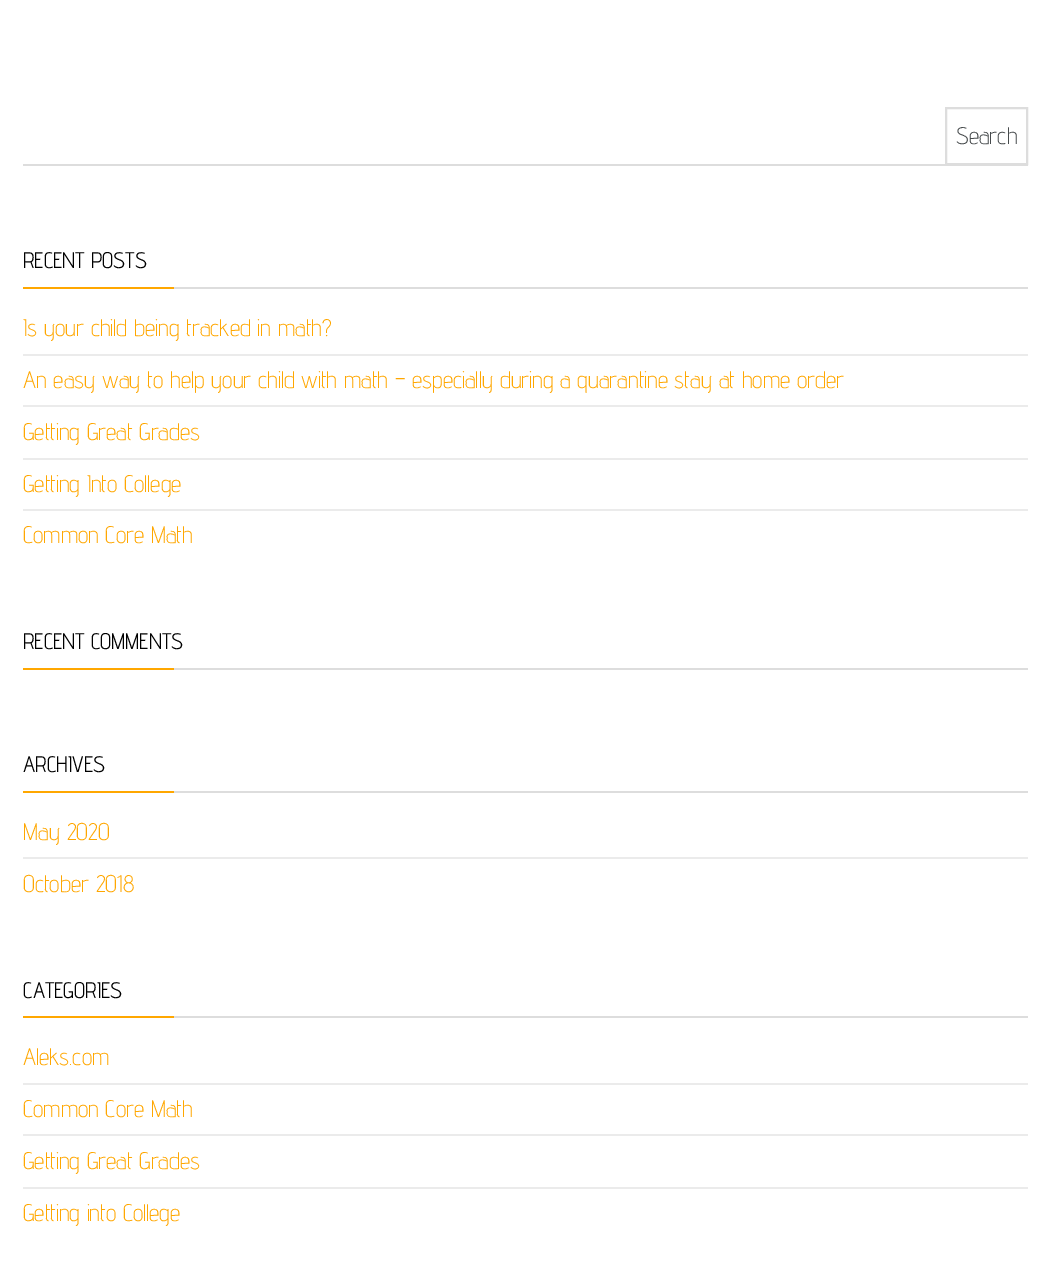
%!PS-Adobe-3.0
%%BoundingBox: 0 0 1050 1272
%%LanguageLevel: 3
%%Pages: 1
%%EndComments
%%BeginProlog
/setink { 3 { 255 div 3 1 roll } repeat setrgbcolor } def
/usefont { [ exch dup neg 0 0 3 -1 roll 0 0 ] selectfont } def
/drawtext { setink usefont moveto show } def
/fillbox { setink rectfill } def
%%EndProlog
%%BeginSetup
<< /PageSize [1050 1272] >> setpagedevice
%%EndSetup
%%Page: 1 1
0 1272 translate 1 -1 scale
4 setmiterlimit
0 0 1050 1272 255 255 255 fillbox
23 164 1005 2 221 221 221 fillbox
2 setlinewidth
946 108 81 56 rectstroke
(Search) 956 144 /AdventPro-Light 24 70 74 76 drawtext
(RECENT POSTS) 23 268 /AdventPro-Regular 22.5 0 0 0 drawtext
23 287 151 2 255 167 0 fillbox
174 287 854 2 221 221 221 fillbox
23 354 1005 2 235 235 235 fillbox
(Is your child being tracked in math?) 23 336 /AdventPro-Light 24 255 167 0 drawtext
23 405 1005 2 235 235 235 fillbox
(An easy way to help your child with math – especially during a quarantine stay at home order) 23 388 /AdventPro-Light 24 255 167 0 drawtext
23 458 1005 2 235 235 235 fillbox
(Getting Great Grades) 23 440 /AdventPro-Light 24 255 167 0 drawtext
23 509 1005 2 235 235 235 fillbox
(Getting Into College) 23 492 /AdventPro-Light 24 255 167 0 drawtext
(Common Core Math) 23 543 /AdventPro-Light 24 255 167 0 drawtext
(RECENT COMMENTS) 23 649 /AdventPro-Regular 22.5 0 0 0 drawtext
23 668 151 2 255 167 0 fillbox
174 668 854 2 221 221 221 fillbox
(ARCHIVES) 23 772 /AdventPro-Regular 22.5 0 0 0 drawtext
23 791 151 2 255 167 0 fillbox
174 791 854 2 221 221 221 fillbox
23 857 1005 2 235 235 235 fillbox
(May 2020) 23 840 /AdventPro-Light 24 255 167 0 drawtext
(October 2018) 23 892 /AdventPro-Light 24 255 167 0 drawtext
(CATEGORIES) 23 998 /AdventPro-Regular 22.5 0 0 0 drawtext
23 1016 151 2 255 167 0 fillbox
174 1016 854 2 221 221 221 fillbox
23 1083 1005 2 235 235 235 fillbox
(Aleks.com) 23 1065 /AdventPro-Light 24 255 167 0 drawtext
23 1134 1005 2 235 235 235 fillbox
(Common Core Math) 23 1117 /AdventPro-Light 24 255 167 0 drawtext
23 1187 1005 2 235 235 235 fillbox
(Getting Great Grades) 23 1169 /AdventPro-Light 24 255 167 0 drawtext
(Getting into College) 23 1221 /AdventPro-Light 24 255 167 0 drawtext
showpage
%%EOF
